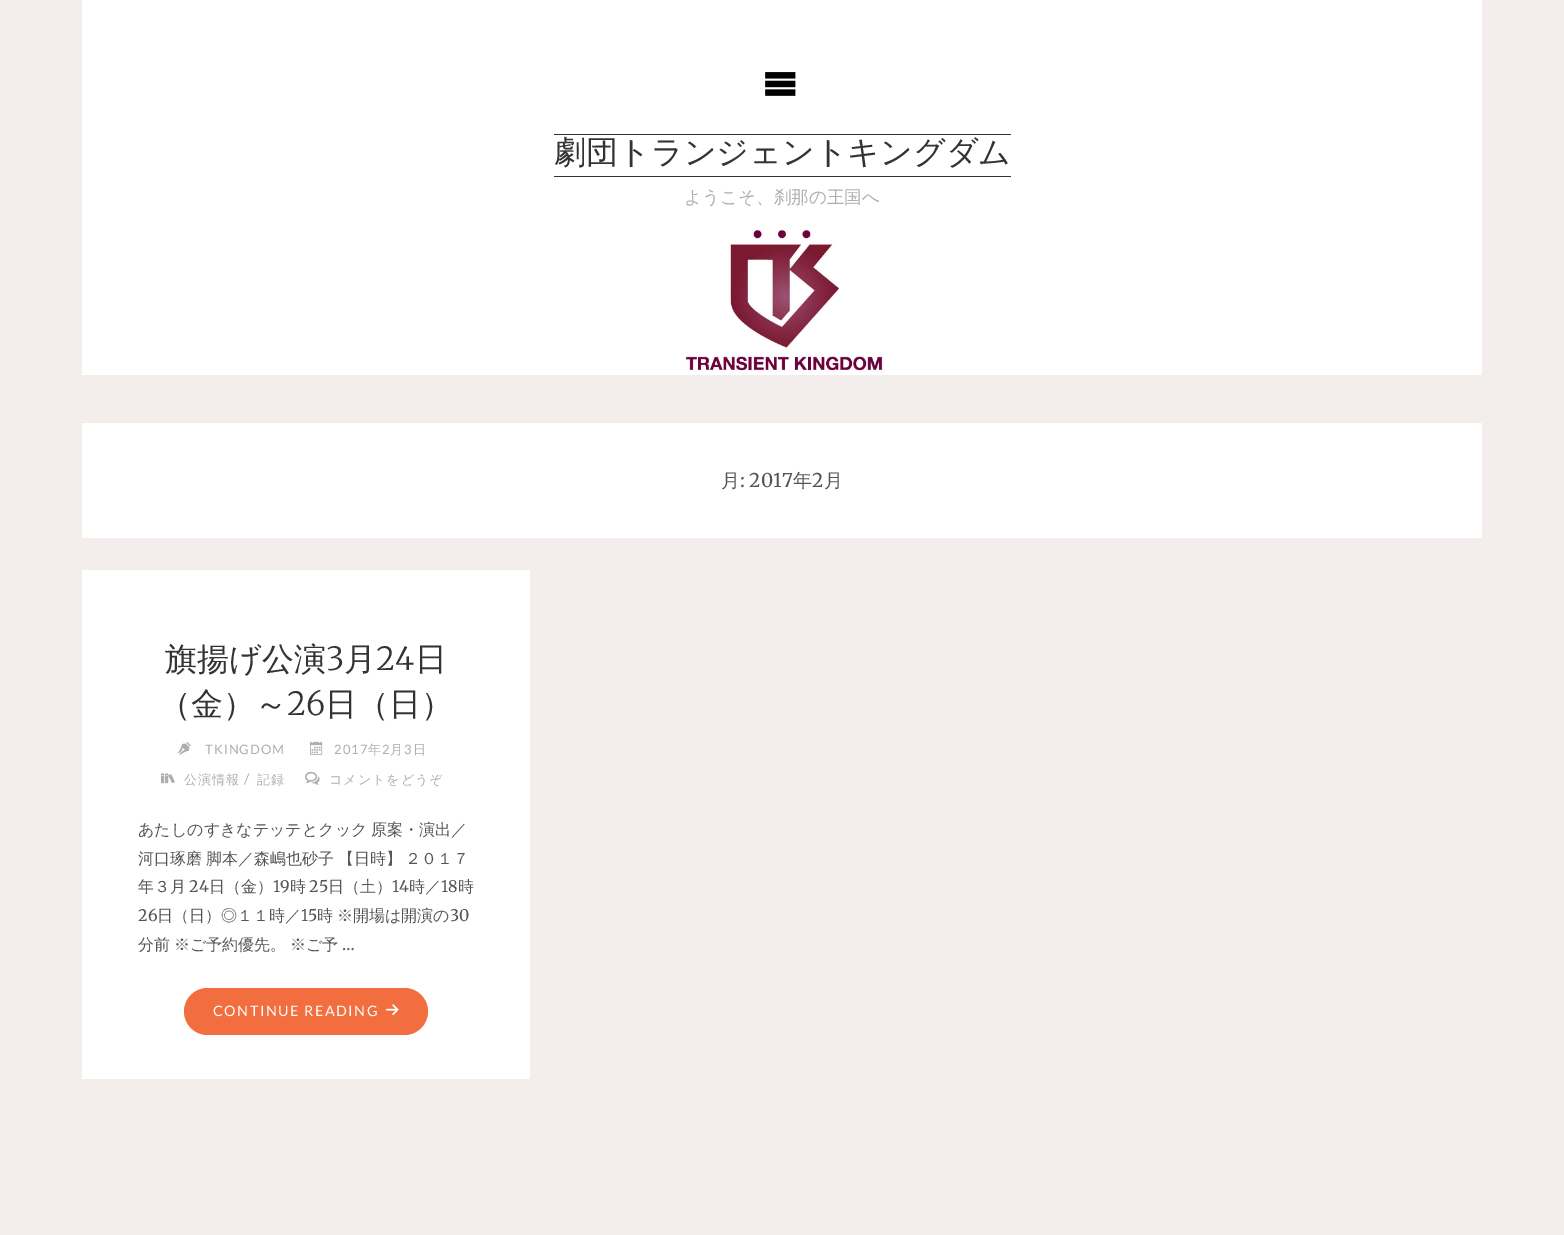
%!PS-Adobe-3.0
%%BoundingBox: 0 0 1564 1235
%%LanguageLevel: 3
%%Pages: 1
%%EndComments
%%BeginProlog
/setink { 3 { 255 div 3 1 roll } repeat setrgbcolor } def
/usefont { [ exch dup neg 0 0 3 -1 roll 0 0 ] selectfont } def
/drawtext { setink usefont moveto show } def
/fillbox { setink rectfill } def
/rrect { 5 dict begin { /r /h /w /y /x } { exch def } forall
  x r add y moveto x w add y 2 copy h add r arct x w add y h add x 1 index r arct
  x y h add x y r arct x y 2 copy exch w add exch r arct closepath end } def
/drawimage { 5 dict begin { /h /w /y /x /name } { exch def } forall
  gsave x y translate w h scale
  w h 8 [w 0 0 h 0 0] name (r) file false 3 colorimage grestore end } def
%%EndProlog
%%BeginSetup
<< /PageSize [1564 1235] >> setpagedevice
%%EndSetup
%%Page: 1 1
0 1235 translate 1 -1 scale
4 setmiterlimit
0 0 1564 1235 243 238 235 fillbox
82 0 1400 375 255 255 255 fillbox
(assets/img1.rgb) 765 72 31 24 drawimage
554 134 457 1 51 51 51 fillbox
554 176 457 1 51 51 51 fillbox
(劇団トランジェントキングダム) 554 163 /WenQuanYiZenHei-Medium 32 51 51 51 drawtext
(ようこそ、刹那の王国へ) 684 203 /WenQuanYiZenHei-Medium 17.6 174 174 174 drawtext
(assets/img2.rgb) 685 230 198 142 drawimage
82 423 1400 115 255 255 255 fillbox
(月) 721 487 /WenQuanYiZenHei-Medium 19 85 85 85 drawtext
(: 2017) 740 487 /Merriweather-Regular 19 85 85 85 drawtext
(年) 793 487 /WenQuanYiZenHei-Medium 19 85 85 85 drawtext
(2) 812 487 /Merriweather-Regular 19 85 85 85 drawtext
(月) 824 487 /WenQuanYiZenHei-Medium 19 85 85 85 drawtext
82 570 448 509 255 255 255 fillbox
(旗揚げ公演) 165 670 /WenQuanYiZenHei-Medium 32 51 51 51 drawtext
(3) 326 670 /Merriweather-Light 32 51 51 51 drawtext
(月) 344 670 /WenQuanYiZenHei-Medium 32 51 51 51 drawtext
(24) 376 670 /Merriweather-Light 32 51 51 51 drawtext
(日) 415 670 /WenQuanYiZenHei-Medium 32 51 51 51 drawtext
(（金）～) 159 715 /WenQuanYiZenHei-Medium 32 51 51 51 drawtext
(26) 287 715 /Merriweather-Light 32 51 51 51 drawtext
(日（日）) 325 715 /WenQuanYiZenHei-Medium 32 51 51 51 drawtext
(assets/img3.rgb) 178 742 13 13 drawimage
/Lato-Regular 13 usefont
174 174 174 setink
205 754 moveto 1 0 (TKINGDOM) ashow
(assets/img4.rgb) 310 741 13 14 drawimage
334 754 moveto 1 0 (2017) ashow
/WenQuanYiZenHei-Medium 13 usefont
368 754 moveto 1 0 (年) ashow
/Lato-Regular 13 usefont
382 754 moveto 1 0 (2) ashow
/WenQuanYiZenHei-Medium 13 usefont
390 754 moveto 1 0 (月) ashow
/Lato-Regular 13 usefont
404 754 moveto 1 0 (3) ashow
/WenQuanYiZenHei-Medium 13 usefont
413 754 moveto 1 0 (日) ashow
(assets/img5.rgb) 161 773 14 11 drawimage
184 784 moveto 1 0 (公演情報) ashow
/Lato-Regular 14.4 usefont
244 784 moveto 1 0 (/) ashow
/WenQuanYiZenHei-Medium 13 usefont
257 784 moveto 1 0 (記録) ashow
(assets/img6.rgb) 305 771 15 14 drawimage
329 784 moveto 1 0 (コメントをどうぞ) ashow
/WenQuanYiZenHei-Medium 16 usefont
85 85 85 setink
138 835 moveto -1 0 32 (あたしのすきなテッテとクック 原案・演出／) widthshow
138 864 moveto -1 0 32 (河口琢磨 脚本／森嶋也砂子 【日時】 ２０１７) widthshow
(年３月) 138 892 /WenQuanYiZenHei-Medium 16 85 85 85 drawtext
(24) 189 892 /Merriweather-Regular 16 85 85 85 drawtext
(日（金）) 209 892 /WenQuanYiZenHei-Medium 16 85 85 85 drawtext
(19) 273 892 /Merriweather-Regular 16 85 85 85 drawtext
(時) 290 892 /WenQuanYiZenHei-Medium 16 85 85 85 drawtext
(25) 309 892 /Merriweather-Regular 16 85 85 85 drawtext
(日（土）) 328 892 /WenQuanYiZenHei-Medium 16 85 85 85 drawtext
(14) 392 892 /Merriweather-Regular 16 85 85 85 drawtext
(時／) 409 892 /WenQuanYiZenHei-Medium 16 85 85 85 drawtext
(18) 441 892 /Merriweather-Regular 16 85 85 85 drawtext
(時) 458 892 /WenQuanYiZenHei-Medium 16 85 85 85 drawtext
(26) 138 921 /Merriweather-Regular 16 85 85 85 drawtext
(日（日）◎１１時／) 157 921 /WenQuanYiZenHei-Medium 16 85 85 85 drawtext
(15) 301 921 /Merriweather-Regular 16 85 85 85 drawtext
/WenQuanYiZenHei-Medium 16 usefont
317 921 moveto -1 0 32 (時 ※開場は開演の) widthshow
(30) 450 921 /Merriweather-Regular 16 85 85 85 drawtext
/WenQuanYiZenHei-Medium 16 usefont
138 950 moveto -1 0 32 (分前 ※ご予約優先。 ※ご予) widthshow
(…) 342 950 /Merriweather-Regular 16 85 85 85 drawtext
242 110 63 setink
184 988 244 47 23.5 rrect fill
/Lato-Regular 14.4 usefont
255 255 255 setink
213 1016 moveto 1.5 0 (CONTINUE READING) ashow
(assets/img7.rgb) 385 1004 14 11 drawimage
showpage
%%EOF
